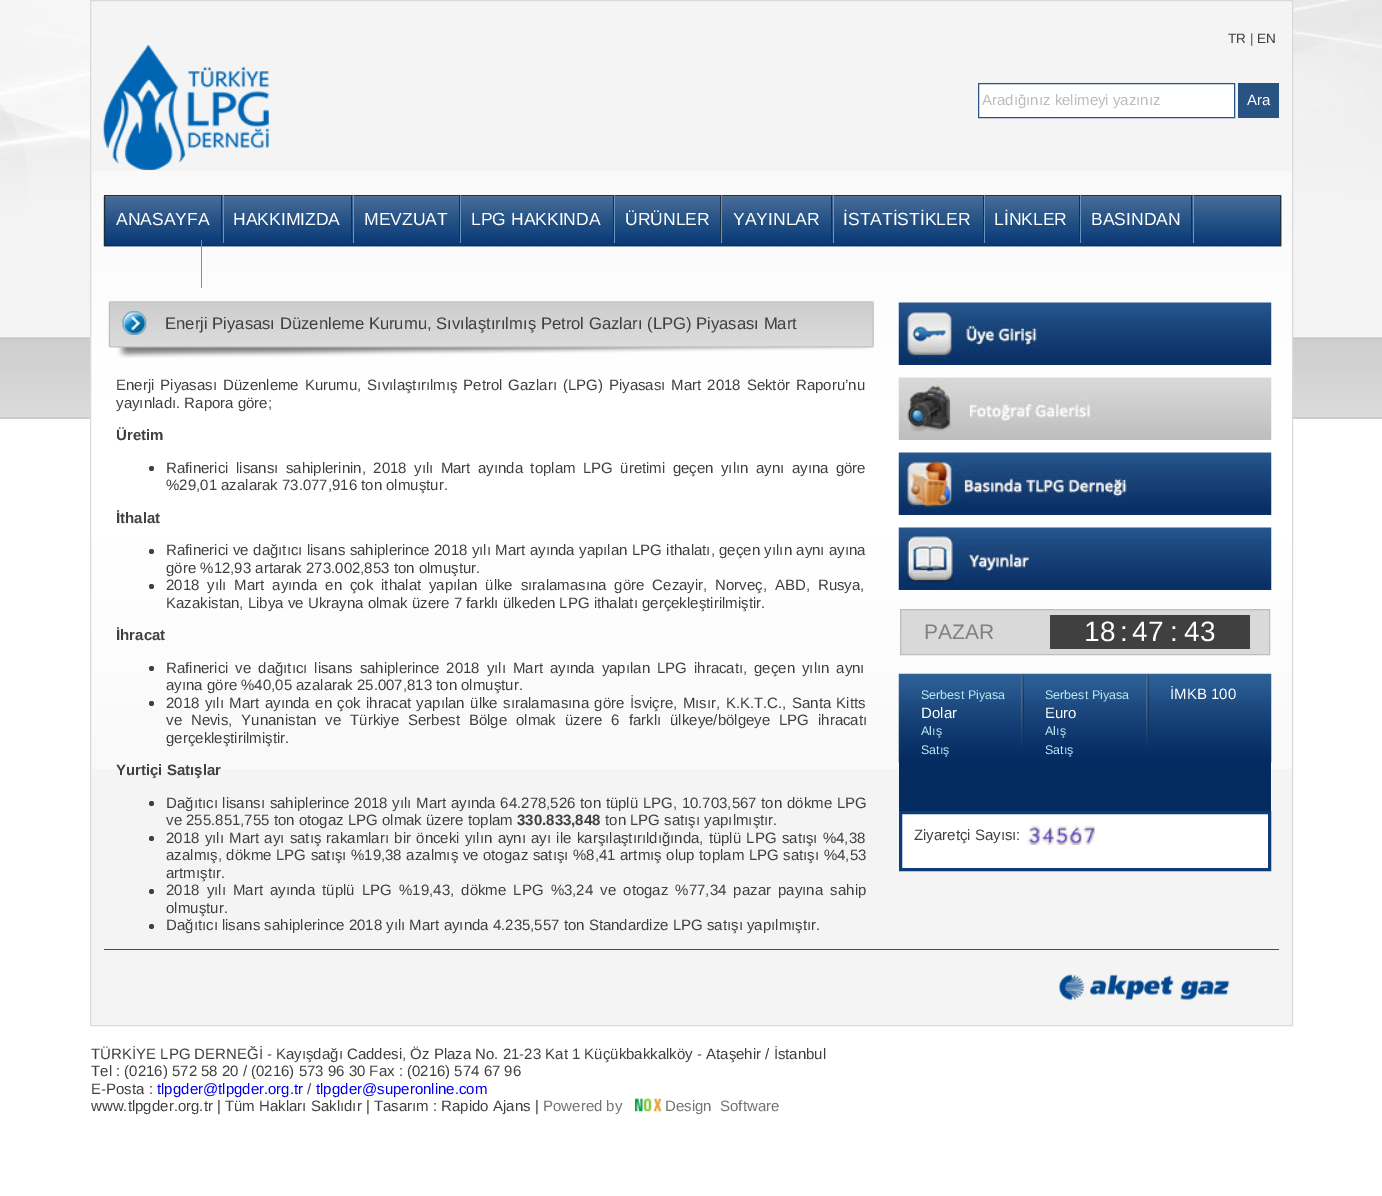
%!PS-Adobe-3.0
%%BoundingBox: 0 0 1382 1196
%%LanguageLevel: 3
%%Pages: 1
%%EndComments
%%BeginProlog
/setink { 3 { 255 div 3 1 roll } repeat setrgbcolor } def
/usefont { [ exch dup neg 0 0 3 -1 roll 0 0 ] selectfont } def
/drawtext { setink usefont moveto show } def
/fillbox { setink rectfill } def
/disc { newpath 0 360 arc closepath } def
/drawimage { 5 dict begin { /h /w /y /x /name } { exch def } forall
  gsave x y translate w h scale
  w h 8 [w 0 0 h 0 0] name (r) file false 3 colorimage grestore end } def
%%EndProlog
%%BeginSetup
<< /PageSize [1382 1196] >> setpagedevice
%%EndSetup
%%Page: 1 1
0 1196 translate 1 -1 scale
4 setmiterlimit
0 0 1382 1196 255 255 255 fillbox
(assets/img1.rgb) 0 0 1382 419 drawimage
91 1 1201 1024 244 244 244 fillbox
(assets/img2.rgb) 91 171 1201 598 drawimage
218 218 218 setink
90.5 0.5 1202 1025 rectstroke
(TR | EN) 1228 43 /LiberationSans-Regular 13.5 64 64 64 drawtext
(assets/img3.rgb) 103 45 166 125 drawimage
255 255 255 setink
978.5 83.5 moveto 1234.5 83.5 lineto 1234.5 117.5 lineto 978.5 117.5 lineto closepath gsave fill grestore
41 83 131 setink
stroke
(Aradığınız kelimeyi yazınız) 982 105 /LiberationSans-Regular 15 188 188 188 drawtext
1238 83 41 35 41 83 131 fillbox
(Ara) 1247 105 /LiberationSans-Regular 15 255 255 255 drawtext
(assets/img4.rgb) 103 196 1179 51 drawimage
27 49 61 setink
104.5 195.5 1176 50 rectstroke
221 196 1 45 27 49 61 fillbox
(ANASAYFA) 116 225 /LiberationSans-Regular 17.5 255 255 255 drawtext
223 195 1 48 102 150 189 fillbox
351 196 1 45 27 49 61 fillbox
(HAKKIMIZDA) 233 225 /LiberationSans-Regular 17.5 255 255 255 drawtext
353 195 1 48 102 150 189 fillbox
459 196 1 45 27 49 61 fillbox
(MEVZUAT) 364 225 /LiberationSans-Regular 17.5 255 255 255 drawtext
460 195 1 48 102 150 189 fillbox
613 196 1 45 27 49 61 fillbox
(LPG HAKKINDA) 471 225 /LiberationSans-Regular 17.5 255 255 255 drawtext
614 195 1 48 102 150 189 fillbox
720 196 1 45 27 49 61 fillbox
(ÜRÜNLER) 625 225 /LiberationSans-Regular 17.5 255 255 255 drawtext
721 195 1 48 102 150 189 fillbox
831 196 1 45 27 49 61 fillbox
(YAYINLAR) 733 225 /LiberationSans-Regular 17.5 255 255 255 drawtext
833 195 1 48 102 150 189 fillbox
983 196 1 45 27 49 61 fillbox
(İSTATİSTİKLER) 843 225 /LiberationSans-Regular 17.5 255 255 255 drawtext
984 195 1 48 102 150 189 fillbox
1079 196 1 45 27 49 61 fillbox
(LİNKLER) 994 225 /LiberationSans-Regular 17.5 255 255 255 drawtext
1080 195 1 48 102 150 189 fillbox
1191 196 1 45 27 49 61 fillbox
(BASINDAN) 1091 225 /LiberationSans-Regular 17.5 255 255 255 drawtext
1193 195 1 48 102 150 189 fillbox
201 240 1 48 102 150 189 fillbox
(assets/img5.rgb) 108 301 766 57 drawimage
(assets/img6.rgb) 122 311 25 24 drawimage
(Enerji Piyasası Düzenleme Kurumu, Sıvılaştırılmış Petrol Gazları \(LPG\) Piyasası Mart) 165 329 /LiberationSans-Regular 16.65 64 64 64 drawtext
/LiberationSans-Regular 15 usefont
116 390 moveto 1.8 0 32 (Enerji Piyasası Düzenleme Kurumu, Sıvılaştırılmış Petrol Gazları \(LPG\) Piyasası Mart 2018 Sektör Raporu’nu) widthshow
(yayınladı. Rapora göre;) 116 408 /LiberationSans-Regular 15 64 64 64 drawtext
(Üretim) 116 440 /LiberationSans-Bold 15 64 64 64 drawtext
151.5 468.5 2.5 disc fill
/LiberationSans-Regular 15 usefont
166 473 moveto 3.25 0 32 (Rafinerici lisansı sahiplerinin, 2018 yılı Mart ayında toplam LPG üretimi geçen yılın aynı ayına göre) widthshow
(%29,01 azalarak 73.077,916 ton olmuştur.) 166 490 /LiberationSans-Regular 15 64 64 64 drawtext
(İthalat) 116 523 /LiberationSans-Bold 15 64 64 64 drawtext
151.5 551.5 2.5 disc fill
/LiberationSans-Regular 15 usefont
166 555 moveto 0.25 0 32 (Rafinerici ve dağıtıcı lisans sahiplerince 2018 yılı Mart ayında yapılan LPG ithalatı, geçen yılın aynı ayına) widthshow
(göre %12,93 artarak 273.002,853 ton olmuştur.) 166 573 /LiberationSans-Regular 15 64 64 64 drawtext
151.5 586.5 2.5 disc fill
166 590 moveto 3.75 0 32 (2018 yılı Mart ayında en çok ithalat yapılan ülke sıralamasına göre Cezayir, Norveç, ABD, Rusya,) widthshow
(Kazakistan, Libya ve Ukrayna olmak üzere 7 farklı ülkeden LPG ithalatı gerçekleştirilmiştir.) 166 608 /LiberationSans-Regular 15 64 64 64 drawtext
(İhracat) 116 640 /LiberationSans-Bold 15 64 64 64 drawtext
151.5 668.5 2.5 disc fill
/LiberationSans-Regular 15 usefont
166 673 moveto 2.75 0 32 (Rafinerici ve dağıtıcı lisans sahiplerince 2018 yılı Mart ayında yapılan LPG ihracatı, geçen yılın aynı) widthshow
(ayına göre %40,05 azalarak 25.007,813 ton olmuştur.) 166 690 /LiberationSans-Regular 15 64 64 64 drawtext
151.5 703.5 2.5 disc fill
166 708 moveto 1.25 0 32 (2018 yılı Mart ayında en çok ihracat yapılan ülke sıralamasına göre İsviçre, Mısır, K.K.T.C., Santa Kitts) widthshow
166 725 moveto 4.75 0 32 (ve Nevis, Yunanistan ve Türkiye Serbest Bölge olmak üzere 6 farklı ülkeye/bölgeye LPG ihracatı) widthshow
(gerçekleştirilmiştir.) 166 743 /LiberationSans-Regular 15 64 64 64 drawtext
(Yurtiçi Satışlar) 116 775 /LiberationSans-Bold 15 64 64 64 drawtext
151.5 803.5 2.5 disc fill
/LiberationSans-Regular 15 usefont
166 808 moveto 0.5 0 32 (Dağıtıcı lisansı sahiplerince 2018 yılı Mart ayında 64.278,526 ton tüplü LPG, 10.703,567 ton dökme LPG) widthshow
(ve 255.851,755 ton otogaz LPG olmak üzere toplam) 166 825 /LiberationSans-Regular 15 64 64 64 drawtext
(330.833,848) 517 825 /LiberationSans-Bold 15 64 64 64 drawtext
(ton LPG satışı yapılmıştır.) 605 825 /LiberationSans-Regular 15 64 64 64 drawtext
151.5 838.5 2.5 disc fill
166 843 moveto 1.1 0 32 (2018 yılı Mart ayı satış rakamları bir önceki yılın aynı ayı ile karşılaştırıldığında, tüplü LPG satışı %4,38) widthshow
166 860 moveto 0.4 0 32 (azalmış, dökme LPG satışı %19,38 azalmış ve otogaz satışı %8,41 artmış olup toplam LPG satışı %4,53) widthshow
(artmıştır.) 166 878 /LiberationSans-Regular 15 64 64 64 drawtext
151.5 891.5 2.5 disc fill
166 895 moveto 3 0 32 (2018 yılı Mart ayında tüplü LPG %19,43, dökme LPG %3,24 ve otogaz %77,34 pazar payına sahip) widthshow
(olmuştur.) 166 913 /LiberationSans-Regular 15 64 64 64 drawtext
151.5 926.5 2.5 disc fill
(Dağıtıcı lisans sahiplerince 2018 yılı Mart ayında 4.235,557 ton Standardize LPG satışı yapılmıştır.) 166 930 /LiberationSans-Regular 15 64 64 64 drawtext
(assets/img7.rgb) 898 302 374 63 drawimage
(assets/img8.rgb) 898 377 374 63 drawimage
(assets/img9.rgb) 898 452 374 63 drawimage
(assets/img10.rgb) 898 527 374 63 drawimage
217 217 217 setink
900.5 609.5 moveto 1269.5 609.5 lineto 1269.5 654.5 lineto 900.5 654.5 lineto closepath gsave fill grestore
190 190 190 setink
stroke
(PAZAR) 924 639 /LiberationSans-Regular 21 128 128 128 drawtext
1050 615 200 34 64 64 64 fillbox
(18) 1084 641 /LiberationSans-Regular 28 255 255 255 drawtext
(:) 1120 641 /LiberationSans-Regular 28 255 255 255 drawtext
(47) 1132 641 /LiberationSans-Regular 28 255 255 255 drawtext
(:) 1170 641 /LiberationSans-Regular 28 255 255 255 drawtext
(43) 1184 641 /LiberationSans-Regular 28 255 255 255 drawtext
899 762 372 49 4 44 97 fillbox
(assets/img11.rgb) 898 673 374 90 drawimage
(Serbest Piyasa) 921 699 /LiberationSans-Regular 12.5 189 231 243 drawtext
(Dolar) 921 718 /LiberationSans-Regular 15 255 255 255 drawtext
(Alış) 921 735 /LiberationSans-Regular 12.5 189 231 243 drawtext
(Satış) 921 754 /LiberationSans-Regular 12.5 189 231 243 drawtext
(assets/img12.rgb) 1021 673 3 76 drawimage
(Serbest Piyasa) 1045 699 /LiberationSans-Regular 12.5 189 231 243 drawtext
(Euro) 1045 718 /LiberationSans-Regular 15 255 255 255 drawtext
(Alış) 1045 735 /LiberationSans-Regular 12.5 189 231 243 drawtext
(Satış) 1045 754 /LiberationSans-Regular 12.5 189 231 243 drawtext
(assets/img13.rgb) 1146 673 3 76 drawimage
(İMKB 100) 1170 699 /LiberationSans-Regular 15 255 255 255 drawtext
900.5 812.5 moveto 1269.5 812.5 lineto 1269.5 869.5 lineto 900.5 869.5 lineto closepath gsave fill grestore
12 61 120 setink
3 setlinewidth
stroke
(Ziyaretçi Sayısı:) 914 840 /LiberationSans-Regular 15 64 64 64 drawtext
(assets/img14.rgb) 1027 825 68 20 drawimage
104 949 1175 1 41 83 131 fillbox
(assets/img15.rgb) 1058 974 172 27 drawimage
(TÜRKİYE LPG DERNEĞİ - Kayışdağı Caddesi, Öz Plaza No. 21-23 Kat 1 Küçükbakkalköy - Ataşehir / İstanbul) 91 1059 /LiberationSans-Regular 15 64 64 64 drawtext
(Tel : \(0216\) 572 58 20 / \(0216\) 573 96 30 Fax : \(0216\) 574 67 96) 91 1076 /LiberationSans-Regular 15 64 64 64 drawtext
(E-Posta :) 91 1094 /LiberationSans-Regular 15 64 64 64 drawtext
(tlpgder@tlpgder.org.tr) 157 1094 /LiberationSans-Regular 15 0 0 238 drawtext
(/) 307 1094 /LiberationSans-Regular 15 64 64 64 drawtext
(tlpgder@superonline.com) 316 1094 /LiberationSans-Regular 15 0 0 238 drawtext
(www.tlpgder.org.tr | Tüm Hakları Saklıdır | Tasarım : Rapido Ajans |) 91 1111 /LiberationSans-Regular 15 64 64 64 drawtext
(Powered by) 543 1111 /LiberationSans-Regular 15 115 115 115 drawtext
(assets/img16.rgb) 635 1098 8 14 drawimage
(assets/img17.rgb) 643 1098 9 14 drawimage
(assets/img18.rgb) 653 1098 9 14 drawimage
(Design) 665 1111 /LiberationSans-Regular 15 115 115 115 drawtext
(Software) 720 1111 /LiberationSans-Regular 15 115 115 115 drawtext
showpage
%%EOF
